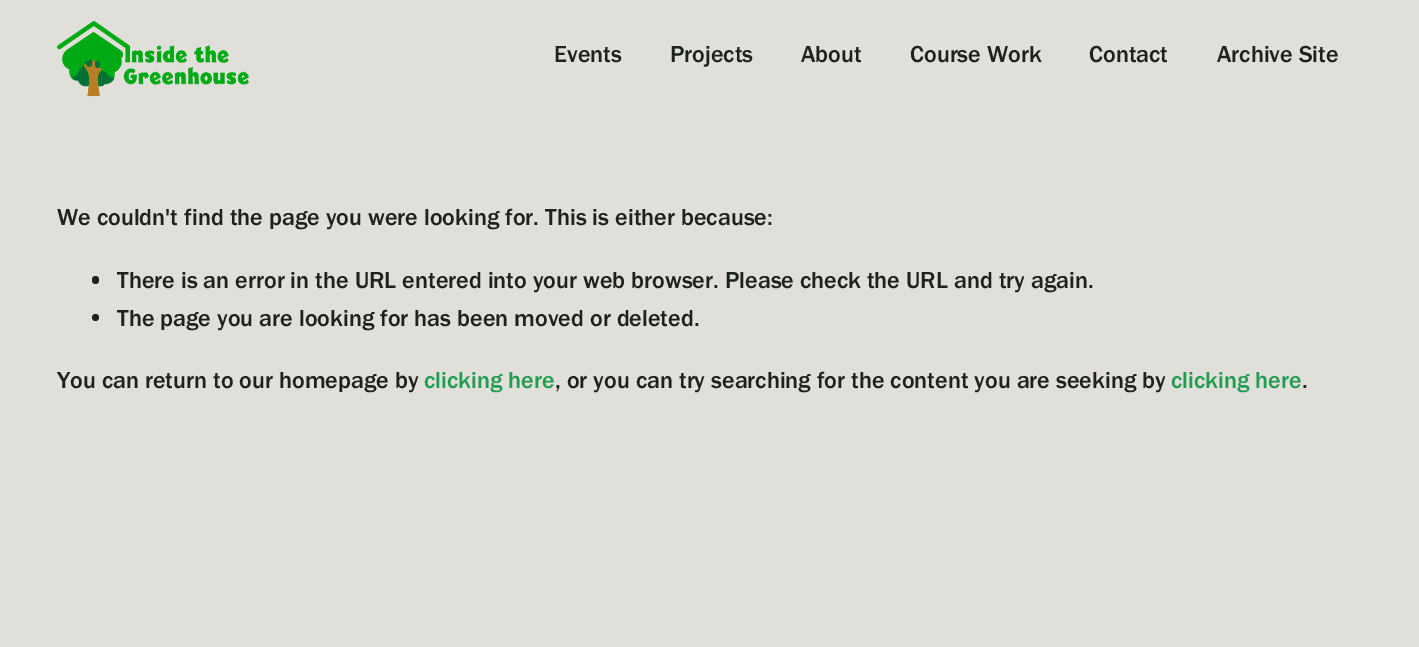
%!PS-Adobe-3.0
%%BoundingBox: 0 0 1419 647
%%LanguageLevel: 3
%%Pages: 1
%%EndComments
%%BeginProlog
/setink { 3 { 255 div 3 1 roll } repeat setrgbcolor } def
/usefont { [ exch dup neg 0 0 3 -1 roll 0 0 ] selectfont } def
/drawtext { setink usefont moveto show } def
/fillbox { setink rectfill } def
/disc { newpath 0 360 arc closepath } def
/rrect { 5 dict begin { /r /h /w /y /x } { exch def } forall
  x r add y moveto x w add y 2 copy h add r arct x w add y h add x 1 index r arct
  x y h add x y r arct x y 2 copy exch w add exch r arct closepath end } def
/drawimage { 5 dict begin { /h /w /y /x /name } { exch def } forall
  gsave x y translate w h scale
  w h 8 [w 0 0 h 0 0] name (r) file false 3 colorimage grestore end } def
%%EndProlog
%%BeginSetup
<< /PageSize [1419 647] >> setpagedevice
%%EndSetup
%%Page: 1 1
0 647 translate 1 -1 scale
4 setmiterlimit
0 0 1419 647 225 223 217 fillbox
(assets/img1.rgb) 56 21 193 76 drawimage
(Events) 554 62 /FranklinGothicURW-Medium 24 29 35 28 drawtext
(Projects) 670 62 /FranklinGothicURW-Medium 24 29 35 28 drawtext
(About) 801 62 /FranklinGothicURW-Medium 24 29 35 28 drawtext
(Course Work) 910 62 /FranklinGothicURW-Medium 24 29 35 28 drawtext
(Contact) 1089 62 /FranklinGothicURW-Medium 24 29 35 28 drawtext
(Archive Site) 1217 62 /FranklinGothicURW-Medium 24 29 35 28 drawtext
(We couldn't find the page you were looking for. This is either because:) 57 225 /FranklinGothicURW-Medium 24 29 35 28 drawtext
92 276 7 8 3.5 rrect fill
(There is an error in the URL entered into your web browser. Please check the URL and try again.) 117 288 /FranklinGothicURW-Medium 24 29 35 28 drawtext
95.5 317.5 3.5 disc fill
(The page you are looking for has been moved or deleted.) 117 326 /FranklinGothicURW-Medium 24 29 35 28 drawtext
(You can return to our homepage by) 57 388 /FranklinGothicURW-Medium 24 29 35 28 drawtext
(clicking here) 424 388 /FranklinGothicURW-Medium 24 32 157 80 drawtext
(, or you can try searching for the content you are seeking by) 555 388 /FranklinGothicURW-Medium 24 29 35 28 drawtext
(clicking here) 1171 388 /FranklinGothicURW-Medium 24 32 157 80 drawtext
(.) 1302 388 /FranklinGothicURW-Medium 24 29 35 28 drawtext
showpage
%%EOF
